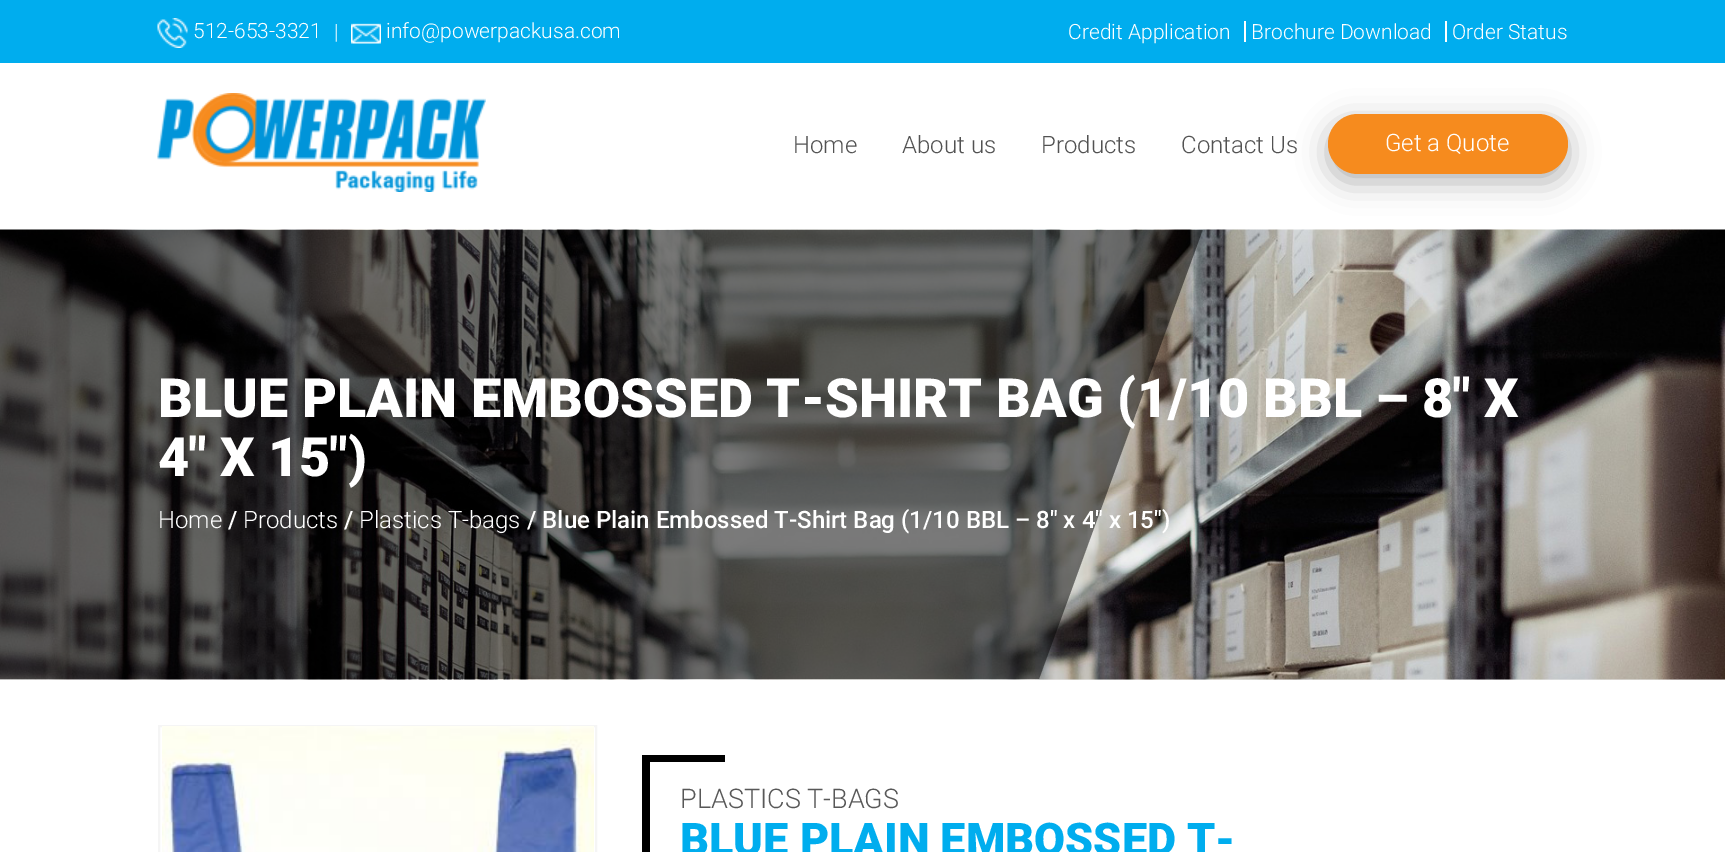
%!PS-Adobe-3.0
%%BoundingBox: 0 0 1725 852
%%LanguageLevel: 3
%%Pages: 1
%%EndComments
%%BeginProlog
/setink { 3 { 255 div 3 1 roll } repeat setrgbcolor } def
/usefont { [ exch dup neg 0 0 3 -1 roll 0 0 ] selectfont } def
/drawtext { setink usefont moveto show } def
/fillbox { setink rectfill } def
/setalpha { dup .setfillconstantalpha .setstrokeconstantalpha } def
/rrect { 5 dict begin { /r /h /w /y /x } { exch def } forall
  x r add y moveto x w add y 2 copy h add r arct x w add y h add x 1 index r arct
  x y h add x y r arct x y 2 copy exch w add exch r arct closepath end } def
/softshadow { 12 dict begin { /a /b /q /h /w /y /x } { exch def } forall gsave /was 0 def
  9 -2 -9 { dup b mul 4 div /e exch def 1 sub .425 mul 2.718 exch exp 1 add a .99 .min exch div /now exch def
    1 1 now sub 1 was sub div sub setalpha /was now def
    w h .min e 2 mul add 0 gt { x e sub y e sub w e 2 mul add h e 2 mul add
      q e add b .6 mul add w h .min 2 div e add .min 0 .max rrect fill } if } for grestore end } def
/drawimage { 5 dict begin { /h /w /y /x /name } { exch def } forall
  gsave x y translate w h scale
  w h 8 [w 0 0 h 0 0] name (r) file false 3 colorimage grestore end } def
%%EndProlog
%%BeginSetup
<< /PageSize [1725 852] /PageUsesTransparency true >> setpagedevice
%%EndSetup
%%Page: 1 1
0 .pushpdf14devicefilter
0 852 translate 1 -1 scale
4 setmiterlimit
0 0 1725 852 255 255 255 fillbox
0 0 1725 63 0 173 238 fillbox
(assets/img1.rgb) 157 18 31 30 drawimage
(512-653-3321) 193 38 /Roboto-Light 21 255 255 255 drawtext
(|) 334 39 /Roboto-Light 21 255 255 255 drawtext
(assets/img2.rgb) 351 23 30 21 drawimage
(info@powerpackusa.com) 386 38 /Roboto-Light 21 255 255 255 drawtext
(Credit Application) 1068 39 /Roboto-Light 21 255 255 255 drawtext
1244 21 2 21 255 255 255 fillbox
(Brochure Download) 1251 39 /Roboto-Light 21 255 255 255 drawtext
1445 21 2 21 255 255 255 fillbox
(Order Status) 1452 39 /Roboto-Light 21 255 255 255 drawtext
(assets/img3.rgb) 157 93 329 99 drawimage
(Home) 793 153 /Roboto-Light 24 82 82 82 drawtext
(About us) 902 153 /Roboto-Light 24 82 82 82 drawtext
(Products) 1041 153 /Roboto-Light 24 82 82 82 drawtext
177 177 177 setink
1328 122 240 60 30 15 1 softshadow
(Contact Us) 1181 153 /Roboto-Light 24 82 82 82 drawtext
246 139 30 setink
1328 114 240 60 30 rrect fill
(Get a Quote) 1385 151 /Roboto-Light 24 255 255 255 drawtext
0 679 1725 1 237 237 237 fillbox
(assets/img4.rgb) 0 229 1725 451 drawimage
gsave
0 230 1725 450 rectclip
0.5 setalpha
0 0 0 setink
-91 229 moveto 1203 229 lineto 1039 679 lineto -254 679 lineto closepath fill
grestore
(BLUE PLAIN EMBOSSED T-SHIRT BAG \(1/10 BBL – 8″ X) 158 417 /Roboto-Black 54 255 255 255 drawtext
(4″ X 15″\)) 158 476 /Roboto-Black 54 255 255 255 drawtext
(Home) 158 528 /Roboto-Light 24 255 255 255 drawtext
(/) 228 528 /Roboto-Medium 24 255 255 255 drawtext
(Products) 243 528 /Roboto-Light 24 255 255 255 drawtext
(/) 344 528 /Roboto-Medium 24 255 255 255 drawtext
(Plastics T-bags) 359 528 /Roboto-Light 24 255 255 255 drawtext
(/ Blue Plain Embossed T-Shirt Bag \(1/10 BBL – 8″ x 4″ x 15″\)) 527 528 /Roboto-Medium 24 255 255 255 drawtext
245 245 245 setink
2 setlinewidth
159 726 437 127 rectstroke
(assets/img5.rgb) 162 726 432 126 drawimage
642 755 8 97 0 0 0 fillbox
650 755 75 7 0 0 0 fillbox
(PLASTICS T-BAGS) 680 808 /Roboto-Light 27 88 88 88 drawtext
(BLUE PLAIN EMBOSSED T-) 680 855 /Roboto-Black 45 0 173 238 drawtext
.poppdf14devicefilter showpage
%%EOF
